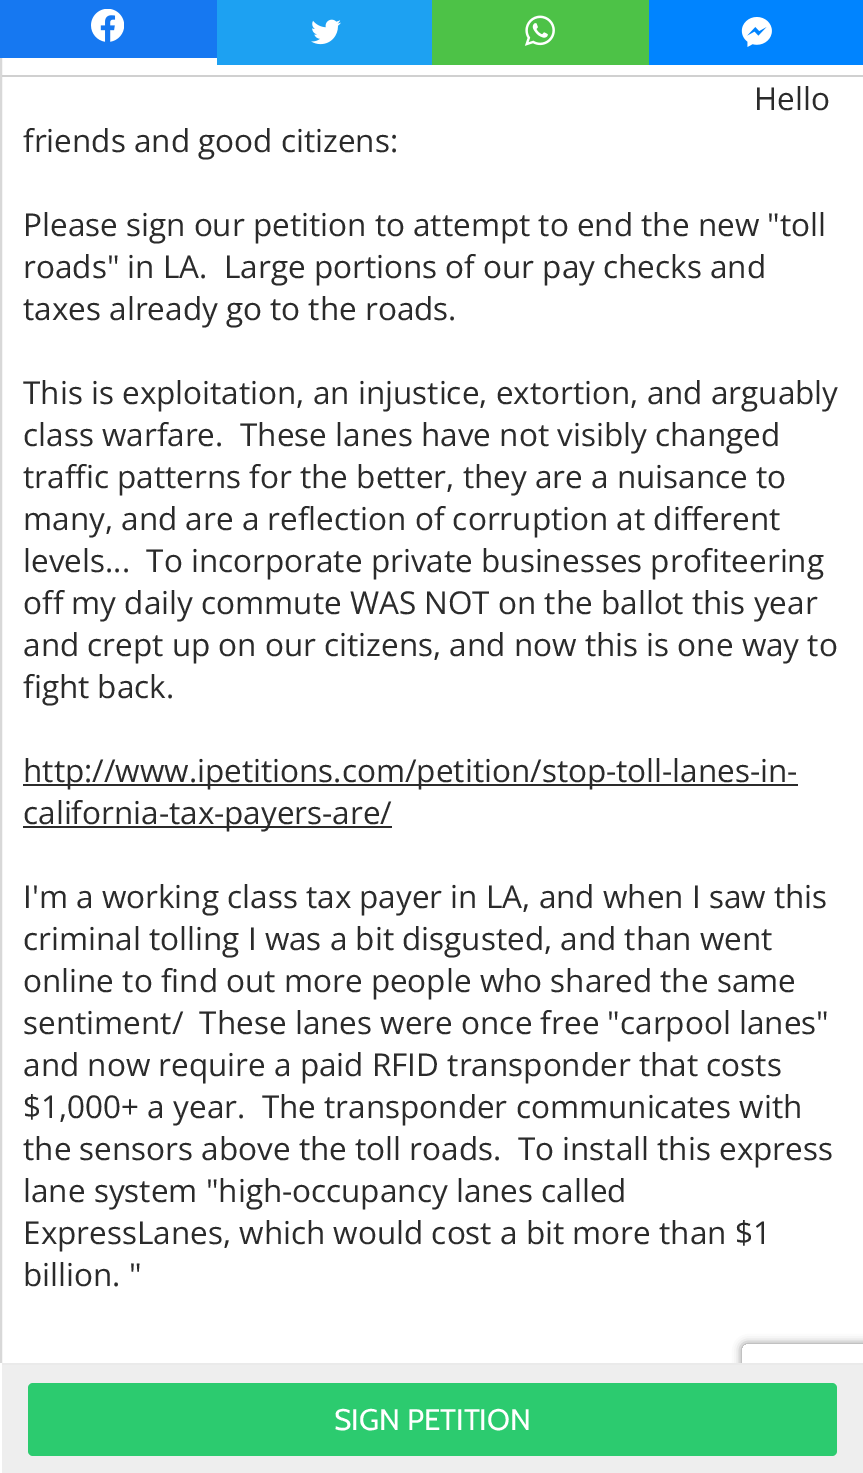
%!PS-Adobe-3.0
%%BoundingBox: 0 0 863 1473
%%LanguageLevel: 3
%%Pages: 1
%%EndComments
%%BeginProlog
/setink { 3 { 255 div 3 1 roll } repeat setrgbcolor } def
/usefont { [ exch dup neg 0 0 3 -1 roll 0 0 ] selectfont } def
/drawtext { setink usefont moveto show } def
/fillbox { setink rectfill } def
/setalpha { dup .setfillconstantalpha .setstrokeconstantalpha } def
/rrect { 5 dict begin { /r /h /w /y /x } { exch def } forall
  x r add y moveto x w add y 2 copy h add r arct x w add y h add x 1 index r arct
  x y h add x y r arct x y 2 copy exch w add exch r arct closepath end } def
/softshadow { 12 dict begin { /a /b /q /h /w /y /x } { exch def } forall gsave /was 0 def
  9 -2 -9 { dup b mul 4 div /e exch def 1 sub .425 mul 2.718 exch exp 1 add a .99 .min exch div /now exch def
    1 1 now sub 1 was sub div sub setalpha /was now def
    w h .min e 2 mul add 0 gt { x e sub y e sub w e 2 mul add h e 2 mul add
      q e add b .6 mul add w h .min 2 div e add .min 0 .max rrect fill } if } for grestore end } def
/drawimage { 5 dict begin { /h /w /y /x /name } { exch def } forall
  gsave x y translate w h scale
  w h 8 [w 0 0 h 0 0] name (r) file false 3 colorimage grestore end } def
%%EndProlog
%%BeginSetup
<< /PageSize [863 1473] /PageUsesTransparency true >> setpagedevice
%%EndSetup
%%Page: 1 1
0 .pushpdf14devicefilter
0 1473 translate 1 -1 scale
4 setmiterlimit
0 0 863 1473 255 255 255 fillbox
216 216 216 setink
2 setlinewidth
1 -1 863 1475 rectstroke
0 0 217 58 22 120 241 fillbox
(assets/img1.rgb) 91 9 33 33 drawimage
217 0 215 65 29 161 242 fillbox
(assets/img2.rgb) 311 19 30 26 drawimage
432 0 217 65 77 194 71 fillbox
(assets/img3.rgb) 524 15 31 31 drawimage
649 0 214 65 0 132 255 fillbox
(assets/img4.rgb) 741 17 31 30 drawimage
(Hello) 754 110 /OpenSans-Regular 31.5 43 43 43 drawtext
(friends and good citizens:) 23 152 /OpenSans-Regular 31.5 43 43 43 drawtext
(Please sign our petition to attempt to end the new "toll) 23 236 /OpenSans-Regular 31.5 43 43 43 drawtext
(roads" in LA.  Large portions of our pay checks and) 23 278 /OpenSans-Regular 31.5 43 43 43 drawtext
(taxes already go to the roads.) 23 320 /OpenSans-Regular 31.5 43 43 43 drawtext
(This is exploitation, an injustice, extortion, and arguably) 23 404 /OpenSans-Regular 31.5 43 43 43 drawtext
(class warfare.) 23 446 /OpenSans-Regular 31.5 43 43 43 drawtext
(These lanes have not visibly changed) 240 446 /OpenSans-Regular 31.5 43 43 43 drawtext
(traffic patterns for the better, they are a nuisance to) 23 488 /OpenSans-Regular 31.5 43 43 43 drawtext
(many, and are a reflection of corruption at different) 23 530 /OpenSans-Regular 31.5 43 43 43 drawtext
(levels...  To incorporate private businesses profiteering) 23 572 /OpenSans-Regular 31.5 43 43 43 drawtext
(off my daily commute WAS NOT on the ballot this year) 23 614 /OpenSans-Regular 31.5 43 43 43 drawtext
(and crept up on our citizens, and now this is one way to) 23 656 /OpenSans-Regular 31.5 43 43 43 drawtext
(fight back.) 23 698 /OpenSans-Regular 31.5 43 43 43 drawtext
23 784 775 2 43 43 43 fillbox
(http://www.ipetitions.com/petition/stop-toll-lanes-in-) 23 782 /OpenSans-Regular 31.5 43 43 43 drawtext
23 826 369 2 43 43 43 fillbox
(california-tax-payers-are/) 23 824 /OpenSans-Regular 31.5 43 43 43 drawtext
(I'm a working class tax payer in LA, and when I saw this) 23 908 /OpenSans-Regular 31.5 43 43 43 drawtext
(criminal tolling I was a bit disgusted, and than went) 23 950 /OpenSans-Regular 31.5 43 43 43 drawtext
(online to find out more people who shared the same) 23 992 /OpenSans-Regular 31.5 43 43 43 drawtext
(sentiment/  These lanes were once free "carpool lanes") 23 1034 /OpenSans-Regular 31.5 43 43 43 drawtext
(and now require a paid RFID transponder that costs) 23 1076 /OpenSans-Regular 31.5 43 43 43 drawtext
($1,000+ a year.  The transponder communicates with) 23 1118 /OpenSans-Regular 31.5 43 43 43 drawtext
(the sensors above the toll roads.  To install this express) 23 1160 /OpenSans-Regular 31.5 43 43 43 drawtext
(lane system "high-occupancy lanes called) 23 1202 /OpenSans-Regular 31.5 43 43 43 drawtext
(ExpressLanes, which would cost a bit more than $1) 23 1244 /OpenSans-Regular 31.5 43 43 43 drawtext
(billion. ") 23 1286 /OpenSans-Regular 31.5 43 43 43 drawtext
2 75 861 2 208 208 208 fillbox
gsave
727 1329 moveto 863 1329 lineto 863 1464 lineto 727 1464 lineto closepath 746 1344 moveto 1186 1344 lineto 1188 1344 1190 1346 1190 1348 curveto 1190 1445 lineto 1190 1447 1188 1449 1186 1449 curveto 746 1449 lineto 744 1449 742 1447 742 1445 curveto 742 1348 lineto 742 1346 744 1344 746 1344 curveto closepath eoclip newpath
128 128 128 setink
742 1344 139 105 4 4.5 1 softshadow
grestore
2 1365 861 108 238 238 238 fillbox
0 1363 863 2 234 234 234 fillbox
0 1363 2 110 255 255 255 fillbox
44 203 111 setink
28 1383 809 73 5 rrect fill
(SIGN PETITION) 334 1430 /Cabin-Regular 29.75 255 255 255 drawtext
.poppdf14devicefilter showpage
%%EOF
